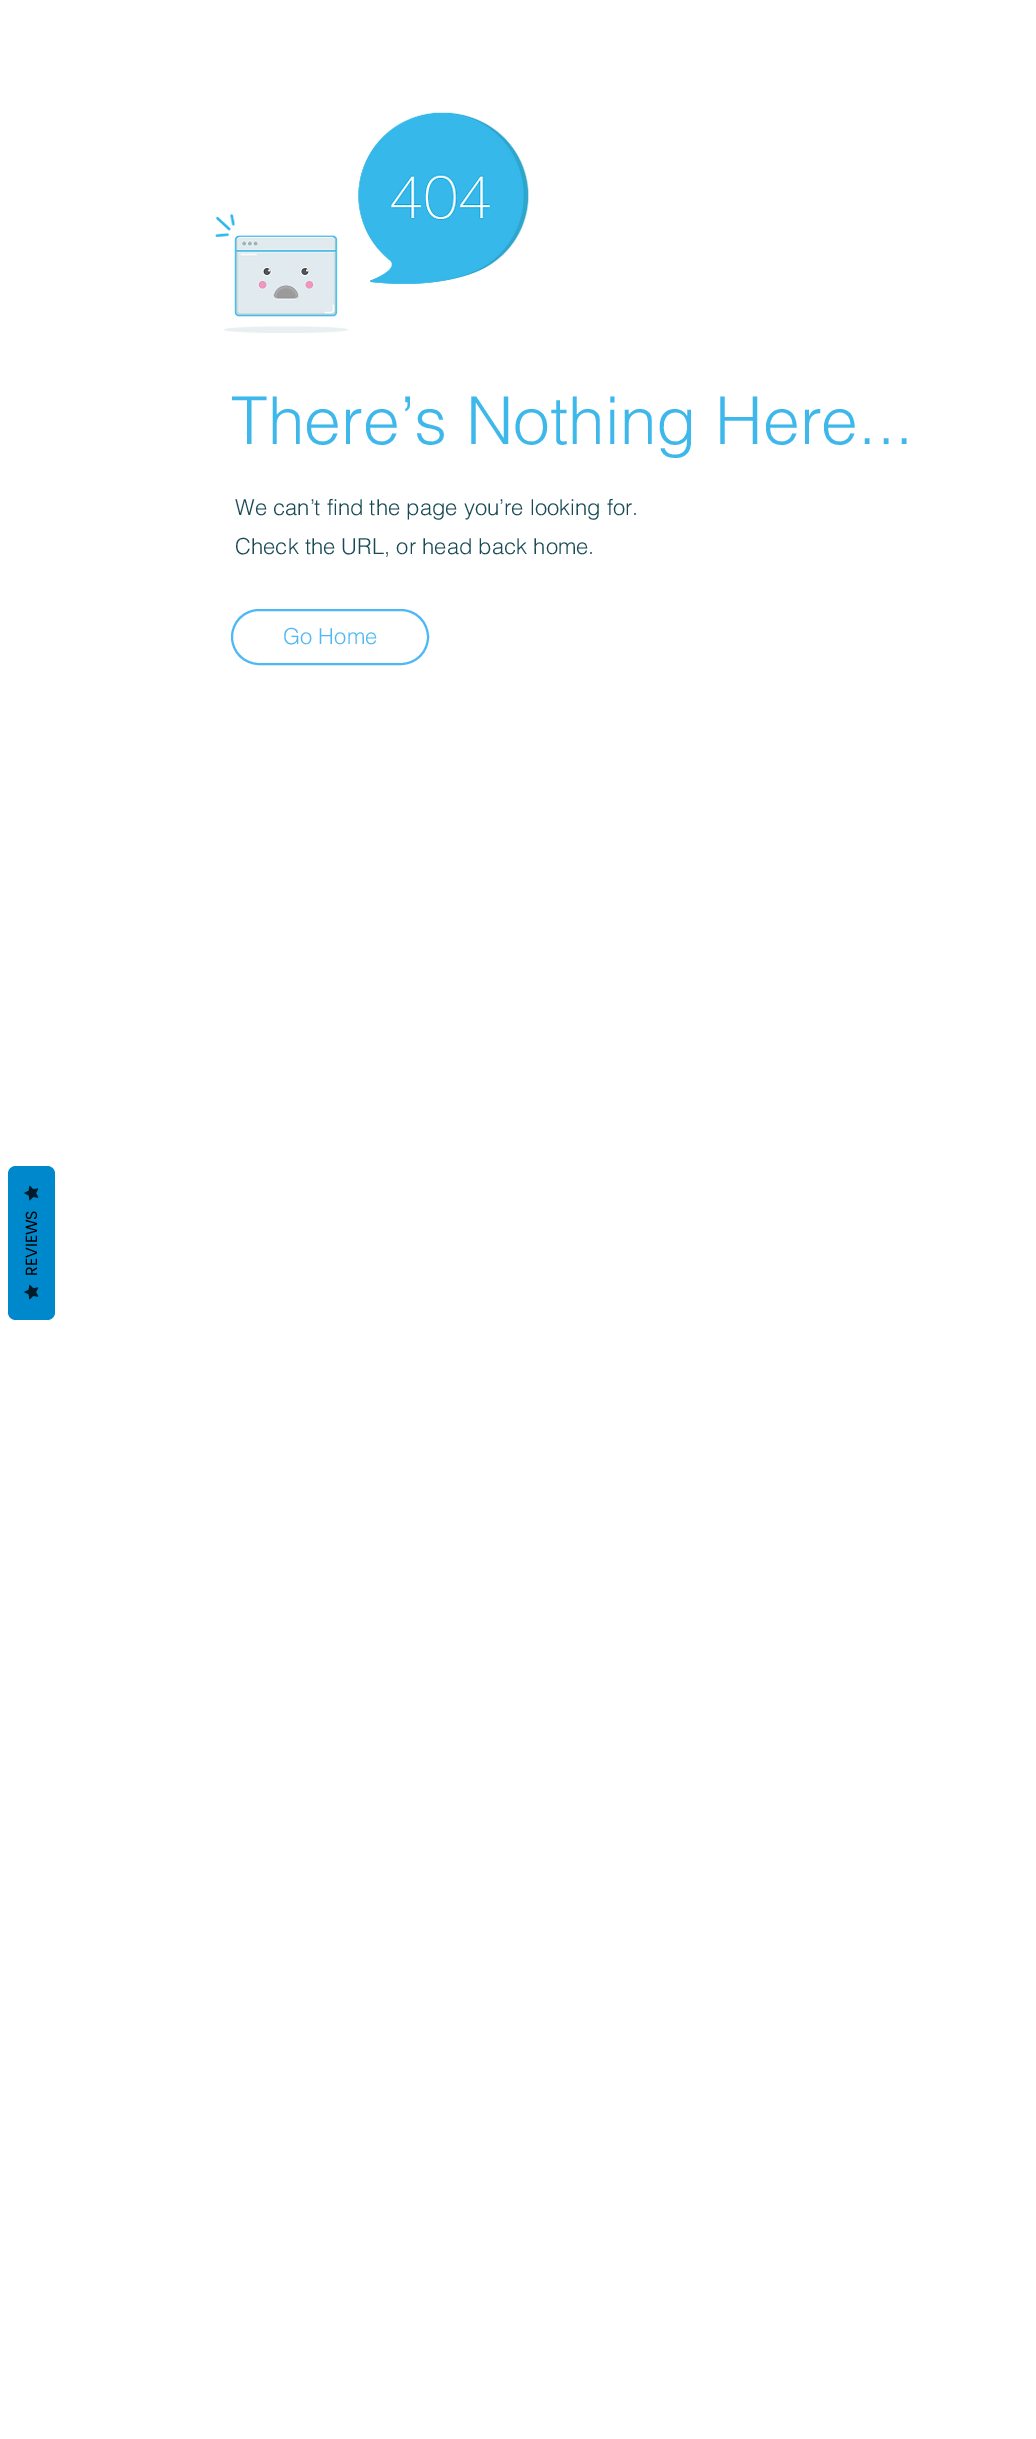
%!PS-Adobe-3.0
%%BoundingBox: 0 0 1036 2439
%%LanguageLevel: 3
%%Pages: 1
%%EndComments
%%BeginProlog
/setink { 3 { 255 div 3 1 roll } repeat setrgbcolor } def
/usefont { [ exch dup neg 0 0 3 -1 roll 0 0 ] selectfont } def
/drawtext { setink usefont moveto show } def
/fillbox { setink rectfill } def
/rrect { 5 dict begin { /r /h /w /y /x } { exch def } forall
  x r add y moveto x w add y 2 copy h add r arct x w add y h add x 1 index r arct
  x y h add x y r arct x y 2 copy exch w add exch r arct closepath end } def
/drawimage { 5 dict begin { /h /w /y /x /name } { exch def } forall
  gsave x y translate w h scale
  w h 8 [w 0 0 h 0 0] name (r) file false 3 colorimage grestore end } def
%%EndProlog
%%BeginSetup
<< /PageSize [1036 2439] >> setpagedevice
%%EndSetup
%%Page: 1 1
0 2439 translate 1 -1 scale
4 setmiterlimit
0 0 1036 2439 255 255 255 fillbox
(assets/img1.rgb) 215 112 314 221 drawimage
(There’s Nothing Here...) 231 444 /helvetica-Light 66 62 184 234 drawtext
(We can’t find the page you’re looking for.) 235 515 /helvetica-Light 22 24 74 86 drawtext
(Check the URL, or head back home.) 235 554 /helvetica-Light 22 24 74 86 drawtext
78 183 245 setink
2 setlinewidth
232 610 196 54 27 rrect stroke
(Go Home) 283 644 /helvetica-Light 22 78 183 245 drawtext
0 136 204 setink
8 1312 moveto 8 1174 lineto 8 1169 12 1166 16 1166 curveto 47 1166 lineto 51 1166 55 1169 55 1174 curveto 55 1312 lineto 55 1317 51 1320 47 1320 curveto 16 1320 lineto 12 1320 8 1317 8 1312 curveto closepath fill
(assets/img2.rgb) 24 1185 15 16 drawimage
/Poppins-Regular 16 usefont
0 0 0 setink
gsave 37 1276 translate -90 rotate 0 0 moveto (REVIEWS) show grestore
(assets/img2.rgb) 24 1284 15 16 drawimage
showpage
%%EOF
